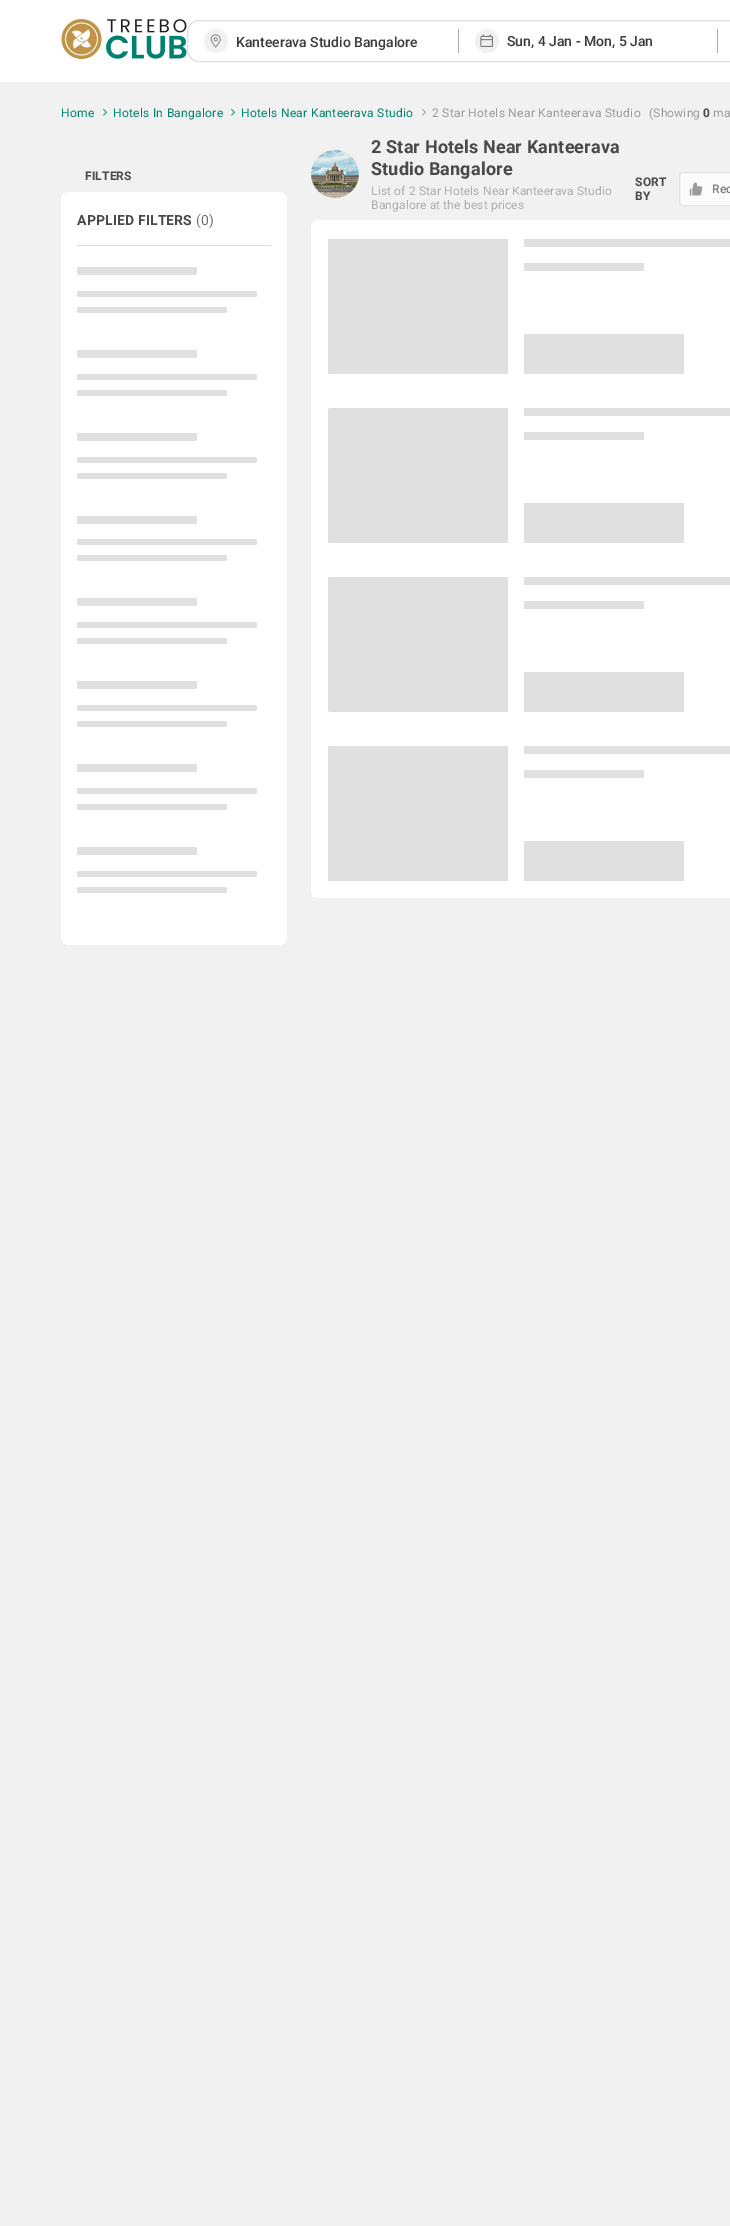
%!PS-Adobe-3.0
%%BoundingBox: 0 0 730 2226
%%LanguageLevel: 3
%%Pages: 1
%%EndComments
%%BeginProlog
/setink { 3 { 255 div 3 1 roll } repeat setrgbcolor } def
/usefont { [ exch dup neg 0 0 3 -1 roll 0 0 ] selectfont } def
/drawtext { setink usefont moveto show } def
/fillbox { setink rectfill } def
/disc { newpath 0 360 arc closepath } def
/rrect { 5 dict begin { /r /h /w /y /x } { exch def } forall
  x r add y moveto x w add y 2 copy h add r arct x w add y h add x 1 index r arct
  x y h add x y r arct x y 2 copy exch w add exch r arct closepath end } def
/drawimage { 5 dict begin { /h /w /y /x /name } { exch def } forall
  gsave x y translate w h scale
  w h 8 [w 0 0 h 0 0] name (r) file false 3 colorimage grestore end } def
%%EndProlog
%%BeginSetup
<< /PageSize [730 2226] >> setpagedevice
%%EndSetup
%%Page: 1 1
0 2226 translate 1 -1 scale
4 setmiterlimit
0 0 730 2226 241 241 241 fillbox
0 0 730 82 255 255 255 fillbox
(assets/img1.rgb) 61 19 126 40 drawimage
222 222 222 setink
187.5 20.5 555 41 11.5 rrect stroke
241 241 241 setink
216 41 12 disc fill
(assets/img2.rgb) 210 34 11 14 drawimage
(Kanteerava Studio Bangalore) 236 47 /Roboto-Medium 14 60 60 60 drawtext
458 29 1 24 174 174 174 fillbox
241 241 241 setink
487 41 12 disc fill
(assets/img3.rgb) 480 34 13 13 drawimage
(Sun, 4 Jan - Mon, 5 Jan) 507 46 /Roboto-Medium 14 60 60 60 drawtext
717 29 1 24 174 174 174 fillbox
/Roboto-Regular 12 usefont
0 130 113 setink
61 117 moveto 0.3 0 (Home) ashow
(assets/img4.rgb) 103 109 4 7 drawimage
113 117 moveto 0.3 0 (Hotels In Bangalore) ashow
(assets/img4.rgb) 231 109 4 7 drawimage
241 117 moveto 0.3 0 (Hotels Near Kanteerava Studio) ashow
(assets/img5.rgb) 422 109 4 7 drawimage
155 155 155 setink
432 117 moveto 0.3 0 (2 Star Hotels Near Kanteerava Studio) ashow
649 117 moveto 0.15 0 (\(Showing) ashow
/Roboto-Bold 12 usefont
74 74 74 setink
703 117 moveto 0.15 0 (0) ashow
/Roboto-Regular 12 usefont
155 155 155 setink
713 117 moveto 0.15 0 (ma) ashow
/Roboto-Bold 12 usefont
74 74 74 setink
85 180 moveto 0.15 0 (FILTERS) ashow
255 255 255 setink
61 192 226 753 8 rrect fill
/Roboto-Bold 14 usefont
74 74 74 setink
77 225 moveto 0.15 0 (APPLIED FILTERS) ashow
/Roboto-Regular 14 usefont
114 113 113 setink
196 225 moveto 0.15 0 (\(0\)) ashow
77 245 194 1 222 222 222 fillbox
224 224 224 setink
77 267 120 8 2 rrect fill
77 291 180 6 2 rrect fill
77 307 150 6 2 rrect fill
77 350 120 8 2 rrect fill
77 374 180 6 2 rrect fill
77 390 150 6 2 rrect fill
77 433 120 8 2 rrect fill
77 457 180 6 2 rrect fill
77 473 150 6 2 rrect fill
77 516 120 8 2 rrect fill
77 539 180 6 2 rrect fill
77 555 150 6 2 rrect fill
77 598 120 8 2 rrect fill
77 622 180 6 2 rrect fill
77 638 150 6 2 rrect fill
77 681 120 8 2 rrect fill
77 705 180 6 2 rrect fill
77 721 150 6 2 rrect fill
77 764 120 8 2 rrect fill
77 788 180 6 2 rrect fill
77 804 150 6 2 rrect fill
77 847 120 8 2 rrect fill
77 871 180 6 2 rrect fill
77 887 150 6 2 rrect fill
(assets/img6.rgb) 311 150 48 48 drawimage
/Roboto-Bold 18 usefont
74 74 74 setink
371 153 moveto 0.15 0 (2 Star Hotels Near Kanteerava) ashow
371 175 moveto 0.15 0 (Studio Bangalore) ashow
/Roboto-Regular 12 usefont
174 174 174 setink
371 195 moveto 0.15 0 (List of 2 Star Hotels Near Kanteerava Studio) ashow
371 209 moveto 0.15 0 (Bangalore at the best prices) ashow
/Roboto-Bold 12 usefont
74 74 74 setink
635 186 moveto 0.15 0 (SORT) ashow
635 200 moveto 0.15 0 (BY) ashow
251 251 251 setink
679.5 172.5 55 33 3.5 rrect gsave fill grestore
228 228 228 setink
stroke
(assets/img7.rgb) 689 182 14 14 drawimage
/Roboto-Medium 12 usefont
124 124 124 setink
712 193 moveto 0.15 0 (Rec) ashow
255 255 255 setink
311.5 220.5 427 677 7.5 rrect gsave fill grestore
stroke
224 224 224 setink
328 239 180 135 2 rrect fill
524 239 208 8 2 rrect fill
524 263 120 8 2 rrect fill
524 334 160 40 2 rrect fill
328 408 180 135 2 rrect fill
524 408 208 8 2 rrect fill
524 432 120 8 2 rrect fill
524 503 160 40 2 rrect fill
328 577 180 135 2 rrect fill
524 577 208 8 2 rrect fill
524 601 120 8 2 rrect fill
524 672 160 40 2 rrect fill
312 895 2 2 255 255 255 fillbox
224 224 224 setink
328 746 180 135 2 rrect fill
524 746 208 8 2 rrect fill
524 770 120 8 2 rrect fill
524 841 160 40 2 rrect fill
showpage
%%EOF
